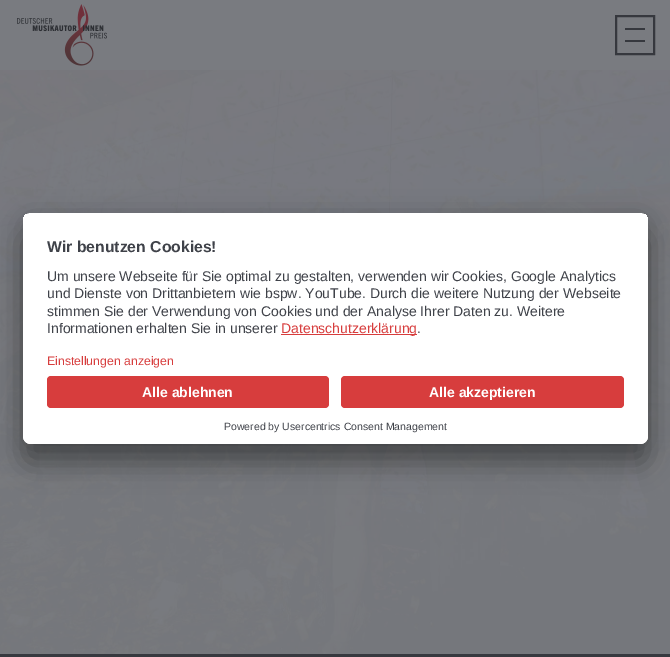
%!PS-Adobe-3.0
%%BoundingBox: 0 0 670 657
%%LanguageLevel: 3
%%Pages: 1
%%EndComments
%%BeginProlog
/setink { 3 { 255 div 3 1 roll } repeat setrgbcolor } def
/usefont { [ exch dup neg 0 0 3 -1 roll 0 0 ] selectfont } def
/drawtext { setink usefont moveto show } def
/fillbox { setink rectfill } def
/setalpha { dup .setfillconstantalpha .setstrokeconstantalpha } def
/rrect { 5 dict begin { /r /h /w /y /x } { exch def } forall
  x r add y moveto x w add y 2 copy h add r arct x w add y h add x 1 index r arct
  x y h add x y r arct x y 2 copy exch w add exch r arct closepath end } def
/softshadow { 12 dict begin { /a /b /q /h /w /y /x } { exch def } forall gsave /was 0 def
  9 -2 -9 { dup b mul 4 div /e exch def 1 sub .425 mul 2.718 exch exp 1 add a .99 .min exch div /now exch def
    1 1 now sub 1 was sub div sub setalpha /was now def
    w h .min e 2 mul add 0 gt { x e sub y e sub w e 2 mul add h e 2 mul add
      q e add b .6 mul add w h .min 2 div e add .min 0 .max rrect fill } if } for grestore end } def
/drawimage { 5 dict begin { /h /w /y /x /name } { exch def } forall
  gsave x y translate w h scale
  w h 8 [w 0 0 h 0 0] name (r) file false 3 colorimage grestore end } def
%%EndProlog
%%BeginSetup
<< /PageSize [670 657] /PageUsesTransparency true >> setpagedevice
%%EndSetup
%%Page: 1 1
0 .pushpdf14devicefilter
0 657 translate 1 -1 scale
4 setmiterlimit
0 0 670 657 121 123 128 fillbox
(assets/img1.rgb) 17 4 90 62 drawimage
54 56 62 setink
2 setlinewidth
616 16 38 38 rectstroke
625 28 20 2 54 56 62 fillbox
625 40 20 2 54 56 62 fillbox
(assets/img2.rgb) 0 70 670 584 drawimage
0 654 670 3 54 56 62 fillbox
0 0 0 setink
23 233 625 231 8 14 0.3 softshadow
23 218 625 231 8 13 0.22 softshadow
255 255 255 setink
23 213 625 231 8 rrect fill
gsave
23 213 625 231 8 rrect clip newpath
31 213 moveto 640 213 lineto 644.5 213 648 216.5 648 221 curveto 648 368 lineto 23 368 lineto 23 221 lineto 23 216.5 26.5 213 31 213 curveto closepath clip newpath
23 214 625 154 255 255 255 fillbox
grestore
(Wir benutzen Cookies!) 47 252 /LiberationSans-Bold 15.75 63 66 73 drawtext
(Um unsere Webseite für Sie optimal zu gestalten, verwenden wir Cookies, Google Analytics) 47 281 /LiberationSans-Regular 14 63 66 73 drawtext
(und Dienste von Drittanbietern wie bspw. YouTube. Durch die weitere Nutzung der Webseite) 47 298 /LiberationSans-Regular 14 63 66 73 drawtext
(stimmen Sie der Verwendung von Cookies und der Analyse Ihrer Daten zu. Weitere) 47 316 /LiberationSans-Regular 14 63 66 73 drawtext
(Informationen erhalten Sie in unserer) 47 333 /LiberationSans-Regular 14 63 66 73 drawtext
281 334 136 1 215 61 61 fillbox
(Datenschutzerklärung) 281 333 /LiberationSans-Regular 14 215 61 61 drawtext
(.) 417 333 /LiberationSans-Regular 14 63 66 73 drawtext
(Einstellungen anzeigen) 47 365 /LiberationSans-Regular 12.25 215 61 61 drawtext
255 255 255 setink
23 368 moveto 648 368 lineto 648 436 lineto 648 440.5 644.5 444 640 444 curveto 31 444 lineto 26.5 444 23 440.5 23 436 curveto closepath fill
215 61 61 setink
47 376 282 32 4 rrect fill
(Alle ablehnen) 142 397 /LiberationSans-Bold 14 255 255 255 drawtext
215 61 61 setink
341 376 283 32 4 rrect fill
(Alle akzeptieren) 429 397 /LiberationSans-Bold 14 255 255 255 drawtext
(Powered by Usercentrics Consent Management) 224 430 /LiberationSans-Regular 10.5 63 66 73 drawtext
.poppdf14devicefilter showpage
%%EOF
